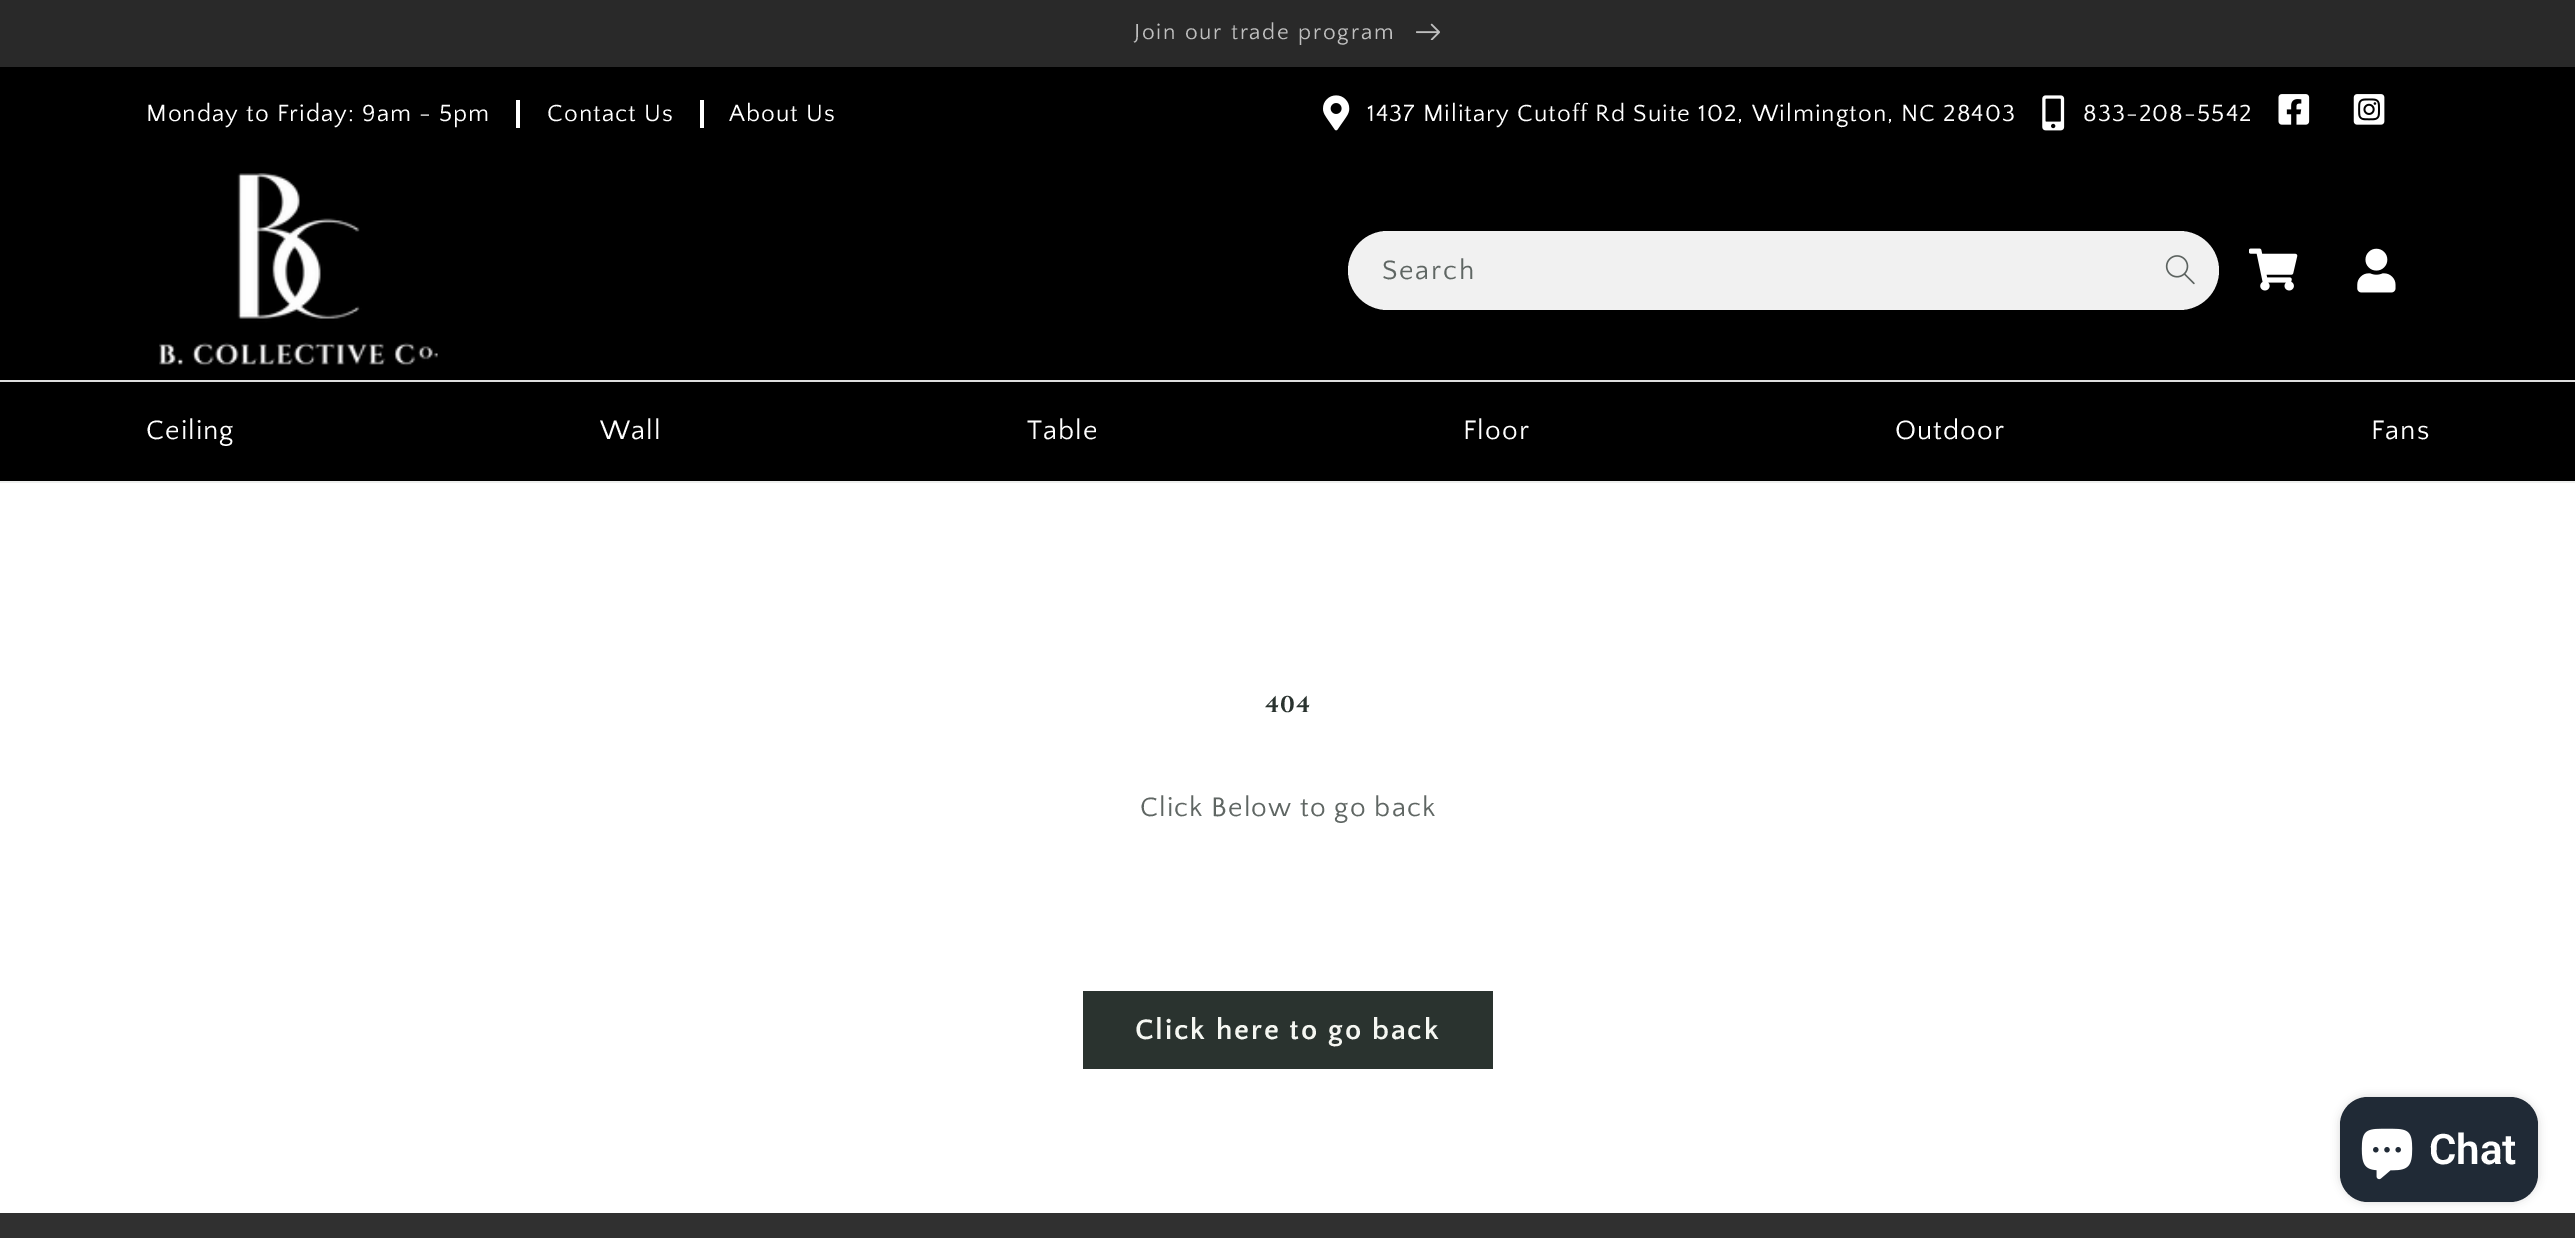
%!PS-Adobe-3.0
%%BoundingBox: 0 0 2575 1238
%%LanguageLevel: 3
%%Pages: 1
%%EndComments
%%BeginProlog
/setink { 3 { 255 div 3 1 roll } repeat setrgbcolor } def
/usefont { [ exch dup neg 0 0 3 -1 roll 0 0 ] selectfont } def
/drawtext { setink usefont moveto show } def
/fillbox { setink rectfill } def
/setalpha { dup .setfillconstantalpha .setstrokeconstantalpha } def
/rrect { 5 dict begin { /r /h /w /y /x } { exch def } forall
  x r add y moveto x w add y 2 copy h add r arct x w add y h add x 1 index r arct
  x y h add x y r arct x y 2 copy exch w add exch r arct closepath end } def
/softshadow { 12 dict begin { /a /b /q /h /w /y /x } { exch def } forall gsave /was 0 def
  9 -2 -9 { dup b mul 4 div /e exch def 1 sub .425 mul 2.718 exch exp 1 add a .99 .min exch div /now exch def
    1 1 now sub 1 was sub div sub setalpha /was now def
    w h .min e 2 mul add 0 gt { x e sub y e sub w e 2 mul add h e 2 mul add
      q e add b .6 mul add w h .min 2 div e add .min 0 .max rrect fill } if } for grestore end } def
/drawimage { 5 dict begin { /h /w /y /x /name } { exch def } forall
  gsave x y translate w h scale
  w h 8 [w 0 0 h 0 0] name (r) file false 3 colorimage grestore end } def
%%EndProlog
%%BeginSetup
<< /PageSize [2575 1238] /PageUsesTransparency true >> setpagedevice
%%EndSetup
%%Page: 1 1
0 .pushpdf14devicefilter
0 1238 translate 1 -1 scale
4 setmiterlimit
0 0 2575 1238 255 255 255 fillbox
0 0 2575 67 41 41 41 fillbox
/QuattrocentoSans-Regular 22.75 usefont
191 191 191 setink
1134 39 moveto 1.75 0 (Join our trade program) ashow
(assets/img1.rgb) 1416 23 24 17 drawimage
0 67 2575 414 0 0 0 fillbox
516 100 4 28 255 255 255 fillbox
/QuattrocentoSans-Regular 24.5 usefont
146 121 moveto 1.05 0 (Monday to Friday: 9am - 5pm) ashow
700 100 4 28 255 255 255 fillbox
547 121 moveto 1.05 0 (Contact Us) ashow
729 121 moveto 1.05 0 (About Us) ashow
(assets/img2.rgb) 1323 95 27 36 drawimage
1367 121 moveto 1.05 0 (1437 Military Cutoff Rd Suite 102, Wilmington, NC 28403) ashow
(assets/img3.rgb) 2042 95 23 36 drawimage
2083 121 moveto 1.05 0 (833-208-5542) ashow
(assets/img4.rgb) 2278 94 32 31 drawimage
(assets/img5.rgb) 2353 94 32 31 drawimage
(assets/img6.rgb) 159 173 279 193 drawimage
241 241 241 setink
1348 231 871 79 39.5 rrect fill
/QuattrocentoSans-Regular 28 usefont
95 102 99 setink
1382 279 moveto 1.75 0 (Search) ashow
(assets/img7.rgb) 2165 255 30 30 drawimage
(assets/img8.rgb) 2249 248 49 43 drawimage
(assets/img9.rgb) 2357 248 39 45 drawimage
0 380 2575 2 222 222 222 fillbox
255 255 255 setink
146 439 moveto 1.05 0 (Ceiling) ashow
600 439 moveto 1.05 0 (Wall) ashow
1027 439 moveto 1.05 0 (Table) ashow
1463 439 moveto 1.05 0 (Floor) ashow
1895 439 moveto 1.05 0 (Outdoor) ashow
2371 439 moveto 1.05 0 (Fans) ashow
0 481 2575 2 238 239 238 fillbox
/Cinzel-Bold 22.75 usefont
42 51 47 setink
1265 712 moveto 1.05 0 (404) ashow
/QuattrocentoSans-Regular 28 usefont
95 102 99 setink
1140 816 moveto 1.05 0 (Click Below to go back) ashow
1083 991 410 78 42 51 47 fillbox
/QuattrocentoSans-Bold 29.75 usefont
245 247 242 setink
1135 1039 moveto 1.75 0 (Click here to go back) ashow
0 1213 2575 25 48 48 48 fillbox
0 0 0 setink
2340 1097 198 105 28 4.5 0.15 softshadow
32 42 54 setink
2340 1097 198 105 28 rrect fill
(assets/img10.rgb) 2361 1128 52 52 drawimage
(Chat) 2429 1164 /Roboto-SemiBold 42 255 255 255 drawtext
.poppdf14devicefilter showpage
%%EOF
